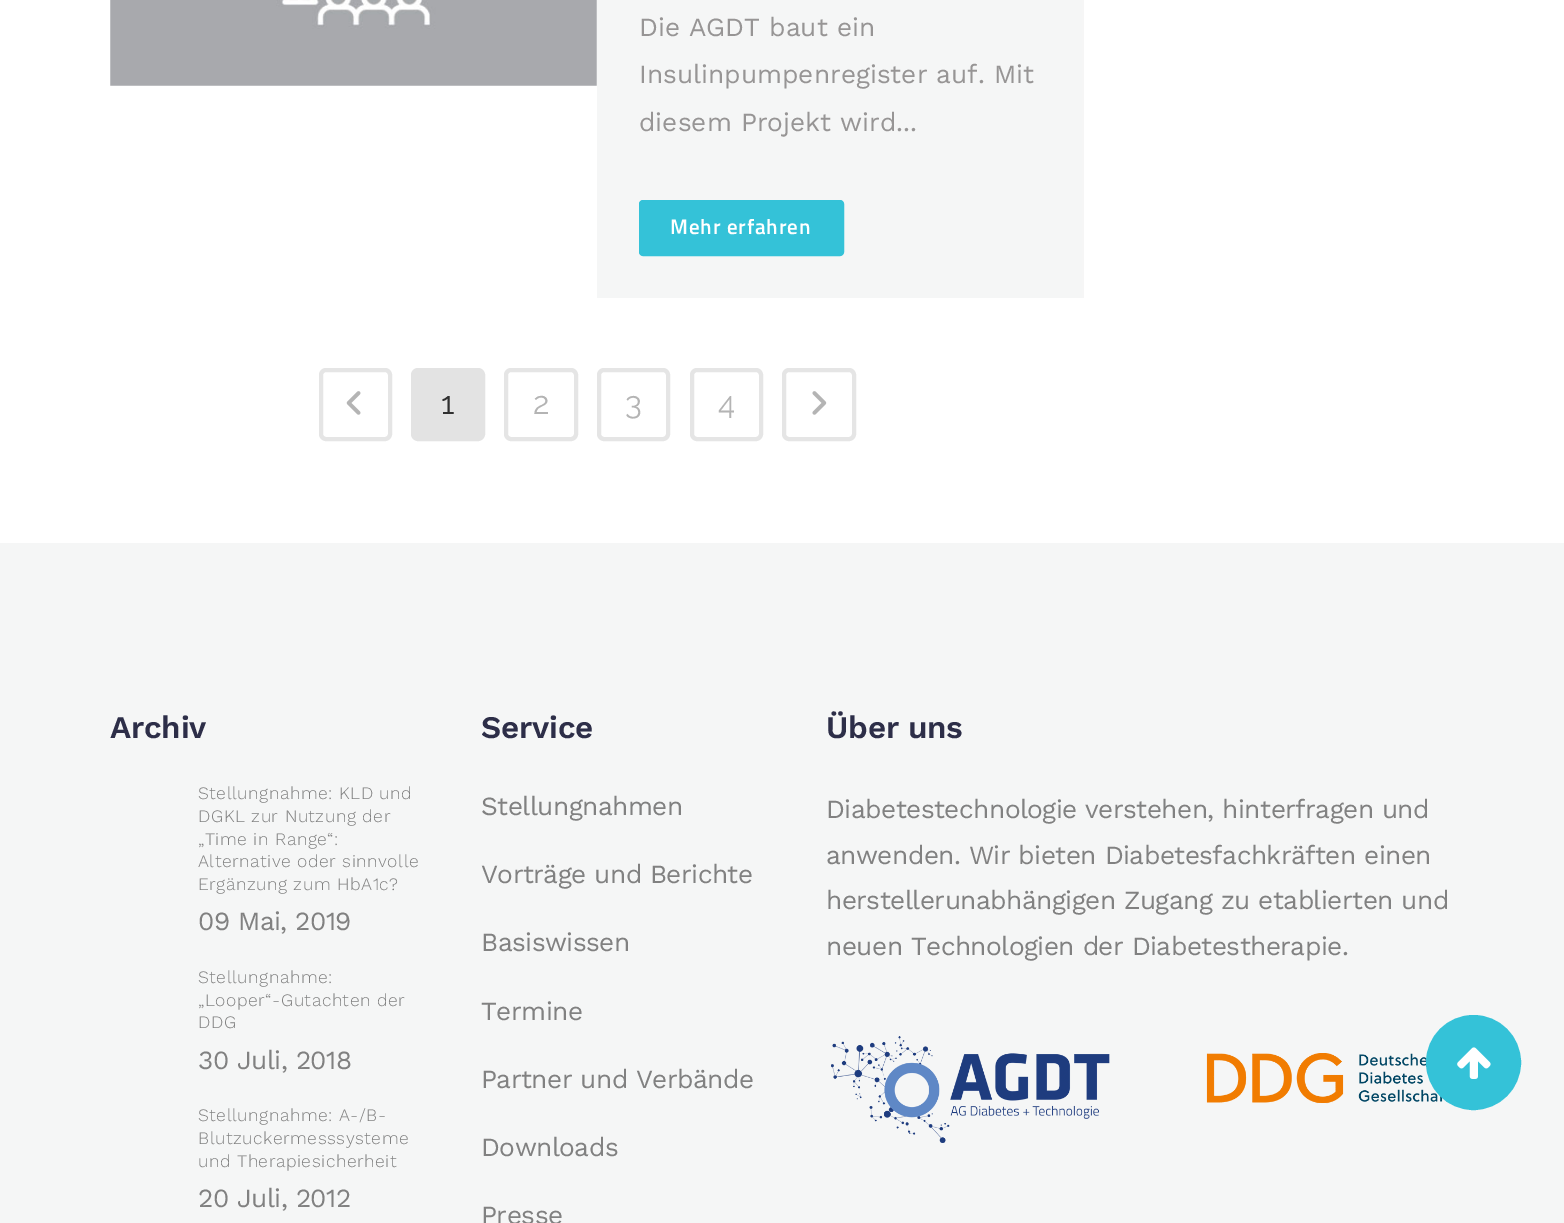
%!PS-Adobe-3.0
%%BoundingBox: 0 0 1564 1223
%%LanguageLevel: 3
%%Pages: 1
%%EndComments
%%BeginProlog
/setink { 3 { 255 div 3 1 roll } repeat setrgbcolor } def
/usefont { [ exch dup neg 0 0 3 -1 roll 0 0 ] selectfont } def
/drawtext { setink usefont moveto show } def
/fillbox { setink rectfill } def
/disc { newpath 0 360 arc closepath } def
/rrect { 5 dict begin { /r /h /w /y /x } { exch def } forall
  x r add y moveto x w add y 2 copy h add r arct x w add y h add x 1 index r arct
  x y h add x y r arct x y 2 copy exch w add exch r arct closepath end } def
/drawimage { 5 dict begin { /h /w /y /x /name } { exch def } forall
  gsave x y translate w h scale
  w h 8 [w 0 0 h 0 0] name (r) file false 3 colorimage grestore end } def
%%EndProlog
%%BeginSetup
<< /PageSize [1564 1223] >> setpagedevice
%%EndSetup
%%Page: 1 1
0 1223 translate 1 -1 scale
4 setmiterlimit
0 0 1564 1223 255 255 255 fillbox
(assets/img1.rgb) 110 0 487 86 drawimage
597 0 485 298 245 246 246 fillbox
1082 0 2 298 246 246 246 fillbox
(Die AGDT baut ein) 639 36 /WorkSans-Regular 26.25 151 149 149 drawtext
(Insulinpumpenregister auf. Mit) 639 83 /WorkSans-Regular 26.25 151 149 149 drawtext
(diesem Projekt wird...) 639 131 /WorkSans-Regular 26.25 151 149 149 drawtext
52 194 216 setink
640 201 203 54 3 rrect gsave fill grestore
2 setlinewidth
stroke
/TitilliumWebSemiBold-SemiBold 21 usefont
255 255 255 setink
670 234 moveto 0.9 0 (Mehr erfahren) ashow
229 229 229 setink
4 setlinewidth
321 370 69 69 5 rrect stroke
(assets/img2.rgb) 346 391 15 24 drawimage
227 227 227 setink
413 370 70 69 5 rrect gsave fill grestore
stroke
(1) 441 414 /Raleway-Regular 31.5 48 48 48 drawtext
229 229 229 setink
506 370 70 69 5 rrect stroke
(2) 533 414 /Raleway-Regular 31.5 180 180 180 drawtext
229 229 229 setink
599 370 69 69 5 rrect stroke
(3) 625 414 /Raleway-Regular 31.5 180 180 180 drawtext
229 229 229 setink
692 370 69 69 5 rrect stroke
(4) 718 414 /Raleway-Regular 31.5 180 180 180 drawtext
229 229 229 setink
784 370 70 69 5 rrect stroke
(assets/img3.rgb) 812 391 15 24 drawimage
0 543 1564 680 245 246 246 fillbox
/WorkSans-SemiBold 31.5 usefont
45 46 72 setink
110 738 moveto -0.25 0 (Archiv) ashow
/WorkSans-Light 17.5 usefont
129 129 129 setink
198 799 moveto 0.5 0 (Stellungnahme: KLD und) ashow
198 822 moveto 0.5 0 (DGKL zur Nutzung der) ashow
198 845 moveto 0.5 0 („Time in Range“:) ashow
198 867 moveto 0.5 0 (Alternative oder sinnvolle) ashow
198 890 moveto 0.5 0 (Ergänzung zum HbA1c?) ashow
/WorkSans-Regular 26.25 usefont
198 930 moveto -0.55 0 (09 Mai, 2019) ashow
/WorkSans-Light 17.5 usefont
198 983 moveto 0.5 0 (Stellungnahme:) ashow
198 1006 moveto 0.5 0 („Looper“-Gutachten der) ashow
198 1028 moveto 0.5 0 (DDG) ashow
/WorkSans-Regular 26.25 usefont
198 1069 moveto -0.55 0 (30 Juli, 2018) ashow
/WorkSans-Light 17.5 usefont
198 1121 moveto 0.5 0 (Stellungnahme: A-/B-) ashow
198 1144 moveto 0.5 0 (Blutzuckermesssysteme) ashow
198 1167 moveto 0.5 0 (und Therapiesicherheit) ashow
/WorkSans-Regular 26.25 usefont
198 1207 moveto -0.55 0 (20 Juli, 2012) ashow
/WorkSans-SemiBold 31.5 usefont
45 46 72 setink
481 738 moveto -0.25 0 (Service) ashow
/WorkSans-Regular 26.25 usefont
129 129 129 setink
481 815 moveto -0.55 0 (Stellungnahmen) ashow
481 883 moveto -0.55 0 (Vorträge und Berichte) ashow
481 951 moveto -0.55 0 (Basiswissen) ashow
481 1020 moveto -0.55 0 (Termine) ashow
481 1088 moveto -0.55 0 (Partner und Verbände) ashow
481 1156 moveto -0.55 0 (Downloads) ashow
481 1224 moveto -0.55 0 (Presse) ashow
/WorkSans-SemiBold 31.5 usefont
45 46 72 setink
826 738 moveto -0.25 0 (Über uns) ashow
/WorkSans-Regular 26.25 usefont
129 129 129 setink
826 818 moveto -0.55 0 (Diabetestechnologie verstehen, hinterfragen und) ashow
826 864 moveto -0.55 0 (anwenden. Wir bieten Diabetesfachkräften einen) ashow
826 909 moveto -0.55 0 (herstellerunabhängigen Zugang zu etablierten und) ashow
826 955 moveto -0.55 0 (neuen Technologien der Diabetestherapie.) ashow
(assets/img4.rgb) 831 1036 279 107 drawimage
(assets/img5.rgb) 1206 1053 241 51 drawimage
52 194 216 setink
1473.5 1062.5 46.5 disc gsave fill grestore
2 setlinewidth
stroke
(assets/img6.rgb) 1457 1047 34 32 drawimage
showpage
%%EOF
